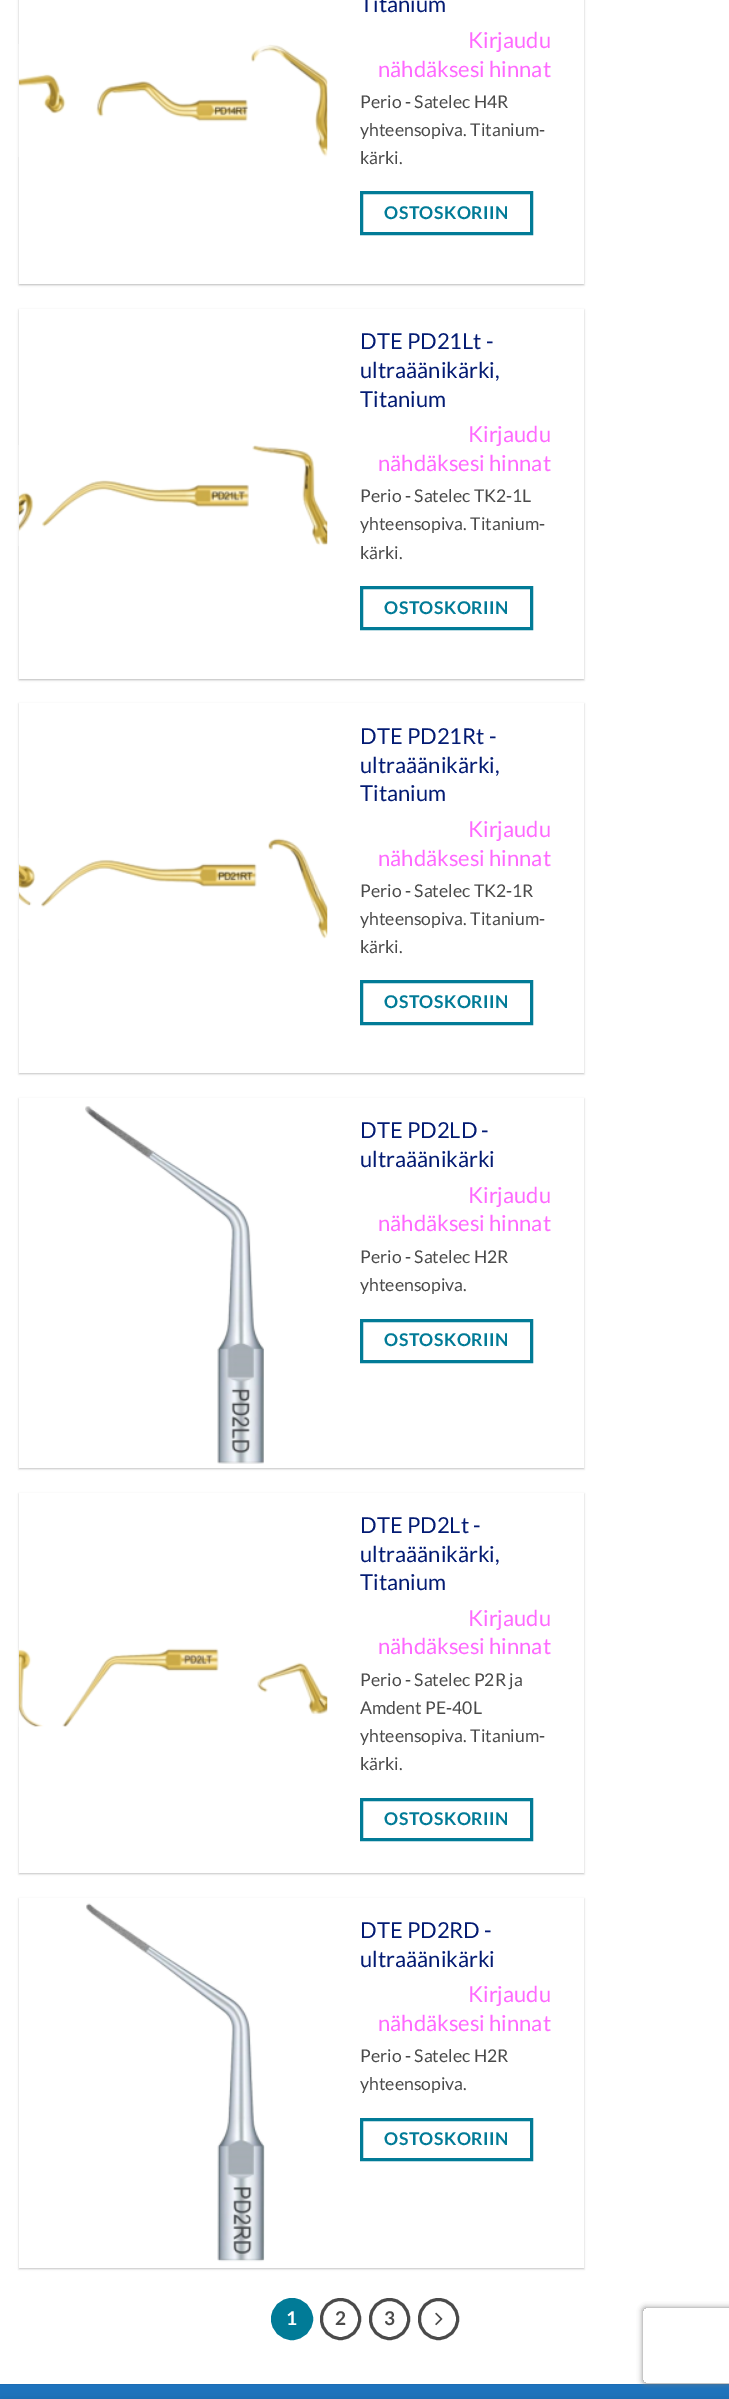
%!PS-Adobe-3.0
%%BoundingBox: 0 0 729 2399
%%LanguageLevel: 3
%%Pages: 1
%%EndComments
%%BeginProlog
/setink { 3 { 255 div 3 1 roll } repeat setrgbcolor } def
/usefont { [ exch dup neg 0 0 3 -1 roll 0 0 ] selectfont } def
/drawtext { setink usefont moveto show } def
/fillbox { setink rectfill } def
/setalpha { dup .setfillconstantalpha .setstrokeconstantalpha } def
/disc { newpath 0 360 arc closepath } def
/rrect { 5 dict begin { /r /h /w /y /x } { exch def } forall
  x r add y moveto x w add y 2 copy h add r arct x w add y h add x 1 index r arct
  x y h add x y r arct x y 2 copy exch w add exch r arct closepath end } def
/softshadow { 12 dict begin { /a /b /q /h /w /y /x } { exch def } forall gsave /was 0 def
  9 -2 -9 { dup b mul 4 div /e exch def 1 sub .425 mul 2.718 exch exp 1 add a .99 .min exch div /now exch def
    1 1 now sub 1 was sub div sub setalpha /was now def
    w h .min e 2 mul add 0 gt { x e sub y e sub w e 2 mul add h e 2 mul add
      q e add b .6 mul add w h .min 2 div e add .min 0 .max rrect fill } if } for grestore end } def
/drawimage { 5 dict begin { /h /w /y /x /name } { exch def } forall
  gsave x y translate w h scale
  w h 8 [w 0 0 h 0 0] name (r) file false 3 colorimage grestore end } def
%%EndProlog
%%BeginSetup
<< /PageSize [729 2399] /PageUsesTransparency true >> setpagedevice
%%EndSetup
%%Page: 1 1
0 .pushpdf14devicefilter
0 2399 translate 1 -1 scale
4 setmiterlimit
0 0 729 2399 255 255 255 fillbox
0 0 0 setink
19 -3 565 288 0 1 0.24 softshadow
21 -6 560 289 0 2 0.12 softshadow
19 0 565 284 255 255 255 fillbox
(assets/img1.rgb) 18 44 310 113 drawimage
(Titanium) 360 12 /Lato-Regular 22 3 27 115 drawtext
(Kirjaudu) 468 48 /Lato-Regular 22 255 105 255 drawtext
(nähdäksesi hinnat) 378 77 /Lato-Regular 22 255 105 255 drawtext
(Perio - Satelec H4R) 360 108 /Lato-Regular 17.6 74 74 74 drawtext
(yhteensopiva. Titanium-) 360 136 /Lato-Regular 17.6 74 74 74 drawtext
(kärki.) 360 164 /Lato-Regular 17.6 74 74 74 drawtext
1 123 151 setink
3 setlinewidth
361.5 192.5 170 41 rectstroke
/Lato-Bold 17.6 usefont
384 219 moveto 0.5 0 (OSTOSKORIIN) ashow
0 0 0 setink
19 310 565 370 0 1 0.24 softshadow
21 313 560 365 0 2 0.12 softshadow
19 309 565 370 255 255 255 fillbox
(assets/img2.rgb) 18 445 310 101 drawimage
(DTE PD21Lt -) 360 349 /Lato-Regular 22 3 27 115 drawtext
(ultraäänikärki,) 360 378 /Lato-Regular 22 3 27 115 drawtext
(Titanium) 360 407 /Lato-Regular 22 3 27 115 drawtext
(Kirjaudu) 468 442 /Lato-Regular 22 255 105 255 drawtext
(nähdäksesi hinnat) 378 471 /Lato-Regular 22 255 105 255 drawtext
(Perio - Satelec TK2-1L) 360 502 /Lato-Regular 17.6 74 74 74 drawtext
(yhteensopiva. Titanium-) 360 530 /Lato-Regular 17.6 74 74 74 drawtext
(kärki.) 360 559 /Lato-Regular 17.6 74 74 74 drawtext
1 123 151 setink
361.5 587.5 170 41 rectstroke
/Lato-Bold 17.6 usefont
384 614 moveto 0.5 0 (OSTOSKORIIN) ashow
0 0 0 setink
19 704 565 370 0 1 0.24 softshadow
19 703 565 370 255 255 255 fillbox
(assets/img3.rgb) 18 838 310 101 drawimage
(DTE PD21Rt -) 360 744 /Lato-Regular 22 3 27 115 drawtext
(ultraäänikärki,) 360 773 /Lato-Regular 22 3 27 115 drawtext
(Titanium) 360 801 /Lato-Regular 22 3 27 115 drawtext
(Kirjaudu) 468 837 /Lato-Regular 22 255 105 255 drawtext
(nähdäksesi hinnat) 378 866 /Lato-Regular 22 255 105 255 drawtext
(Perio - Satelec TK2-1R) 360 897 /Lato-Regular 17.6 74 74 74 drawtext
(yhteensopiva. Titanium-) 360 925 /Lato-Regular 17.6 74 74 74 drawtext
(kärki.) 360 953 /Lato-Regular 17.6 74 74 74 drawtext
1 123 151 setink
361.5 981.5 170 42 rectstroke
/Lato-Bold 17.6 usefont
384 1008 moveto 0.5 0 (OSTOSKORIIN) ashow
0 0 0 setink
19 1099 565 370 0 1 0.24 softshadow
19 1098 565 370 255 255 255 fillbox
(assets/img4.rgb) 85 1106 179 358 drawimage
(DTE PD2LD -) 360 1138 /Lato-Regular 22 3 27 115 drawtext
(ultraäänikärki) 360 1167 /Lato-Regular 22 3 27 115 drawtext
(Kirjaudu) 468 1203 /Lato-Regular 22 255 105 255 drawtext
(nähdäksesi hinnat) 378 1231 /Lato-Regular 22 255 105 255 drawtext
(Perio - Satelec H2R) 360 1263 /Lato-Regular 17.6 74 74 74 drawtext
(yhteensopiva.) 360 1291 /Lato-Regular 17.6 74 74 74 drawtext
1 123 151 setink
361.5 1320.5 170 41 rectstroke
/Lato-Bold 17.6 usefont
384 1346 moveto 0.5 0 (OSTOSKORIIN) ashow
0 0 0 setink
19 1494 565 380 0 1 0.24 softshadow
19 1493 565 380 255 255 255 fillbox
(assets/img5.rgb) 18 1648 310 79 drawimage
(DTE PD2Lt -) 360 1533 /Lato-Regular 22 3 27 115 drawtext
(ultraäänikärki,) 360 1562 /Lato-Regular 22 3 27 115 drawtext
(Titanium) 360 1590 /Lato-Regular 22 3 27 115 drawtext
(Kirjaudu) 468 1626 /Lato-Regular 22 255 105 255 drawtext
(nähdäksesi hinnat) 378 1654 /Lato-Regular 22 255 105 255 drawtext
(Perio - Satelec P2R ja) 360 1686 /Lato-Regular 17.6 74 74 74 drawtext
(Amdent PE-40L) 360 1714 /Lato-Regular 17.6 74 74 74 drawtext
(yhteensopiva. Titanium-) 360 1742 /Lato-Regular 17.6 74 74 74 drawtext
(kärki.) 360 1770 /Lato-Regular 17.6 74 74 74 drawtext
1 123 151 setink
361.5 1799.5 170 40 rectstroke
/Lato-Bold 17.6 usefont
384 1825 moveto 0.5 0 (OSTOSKORIIN) ashow
0 0 0 setink
19 1899 565 370 0 1 0.24 softshadow
19 1898 565 370 255 255 255 fillbox
(assets/img6.rgb) 86 1903 179 359 drawimage
(DTE PD2RD -) 360 1938 /Lato-Regular 22 3 27 115 drawtext
(ultraäänikärki) 360 1967 /Lato-Regular 22 3 27 115 drawtext
(Kirjaudu) 468 2002 /Lato-Regular 22 255 105 255 drawtext
(nähdäksesi hinnat) 378 2031 /Lato-Regular 22 255 105 255 drawtext
(Perio - Satelec H2R) 360 2062 /Lato-Regular 17.6 74 74 74 drawtext
(yhteensopiva.) 360 2090 /Lato-Regular 17.6 74 74 74 drawtext
1 123 151 setink
361.5 2119.5 170 40 rectstroke
/Lato-Bold 17.6 usefont
384 2145 moveto 0.5 0 (OSTOSKORIIN) ashow
292 2319 19.5 disc gsave fill grestore
stroke
(1) 286 2325 /Lato-Bold 19 255 255 255 drawtext
74 74 74 setink
321.5 2299.5 38 39 19 rrect stroke
(2) 335 2325 /Lato-Bold 19 74 74 74 drawtext
370.5 2299.5 38 39 19 rrect stroke
(3) 384 2325 /Lato-Bold 19 74 74 74 drawtext
419.5 2299.5 38 39 19 rrect stroke
(assets/img7.rgb) 435 2312 8 14 drawimage
0 2385 729 14 30 115 190 fillbox
0 2384 729 1 29 109 181 fillbox
gsave
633 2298 moveto 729 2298 lineto 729 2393 lineto 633 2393 lineto closepath 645.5 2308 moveto 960.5 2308 lineto 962 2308 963 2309 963 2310.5 curveto 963 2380.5 lineto 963 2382 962 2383 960.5 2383 curveto 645.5 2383 lineto 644 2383 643 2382 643 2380.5 curveto 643 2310.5 lineto 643 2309 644 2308 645.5 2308 curveto closepath eoclip newpath
128 128 128 setink
643 2308 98 75 2.5 3 1 softshadow
grestore
0 0 0 setink
0 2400 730 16 0 5.5 0.14 softshadow
.poppdf14devicefilter showpage
%%EOF
